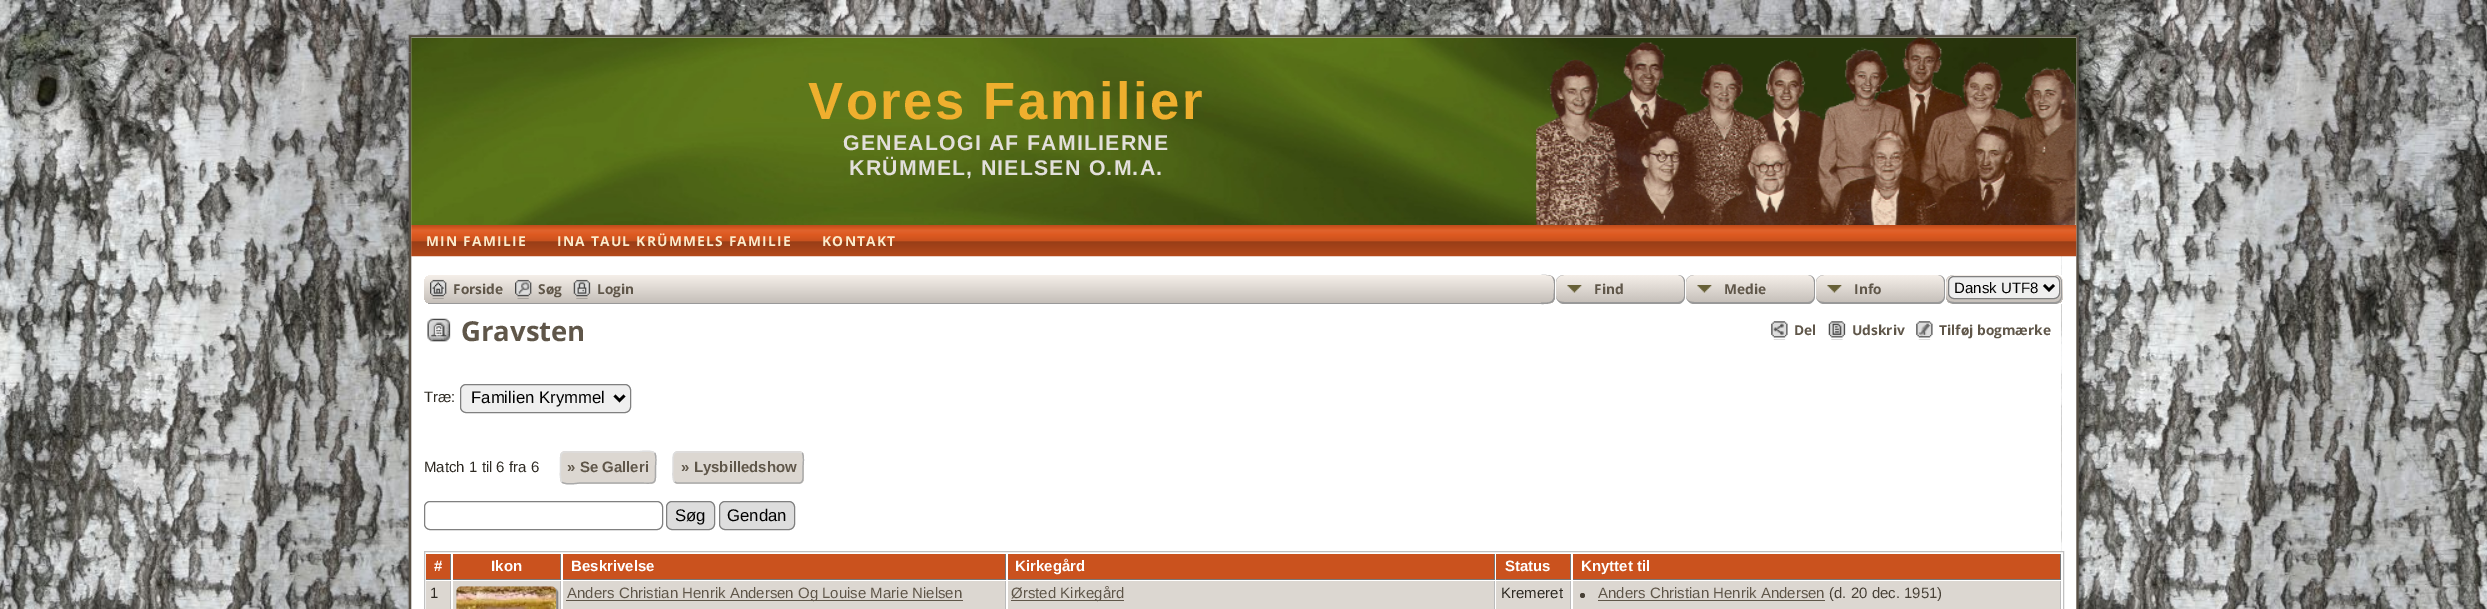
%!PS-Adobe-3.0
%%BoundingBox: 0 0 2487 609
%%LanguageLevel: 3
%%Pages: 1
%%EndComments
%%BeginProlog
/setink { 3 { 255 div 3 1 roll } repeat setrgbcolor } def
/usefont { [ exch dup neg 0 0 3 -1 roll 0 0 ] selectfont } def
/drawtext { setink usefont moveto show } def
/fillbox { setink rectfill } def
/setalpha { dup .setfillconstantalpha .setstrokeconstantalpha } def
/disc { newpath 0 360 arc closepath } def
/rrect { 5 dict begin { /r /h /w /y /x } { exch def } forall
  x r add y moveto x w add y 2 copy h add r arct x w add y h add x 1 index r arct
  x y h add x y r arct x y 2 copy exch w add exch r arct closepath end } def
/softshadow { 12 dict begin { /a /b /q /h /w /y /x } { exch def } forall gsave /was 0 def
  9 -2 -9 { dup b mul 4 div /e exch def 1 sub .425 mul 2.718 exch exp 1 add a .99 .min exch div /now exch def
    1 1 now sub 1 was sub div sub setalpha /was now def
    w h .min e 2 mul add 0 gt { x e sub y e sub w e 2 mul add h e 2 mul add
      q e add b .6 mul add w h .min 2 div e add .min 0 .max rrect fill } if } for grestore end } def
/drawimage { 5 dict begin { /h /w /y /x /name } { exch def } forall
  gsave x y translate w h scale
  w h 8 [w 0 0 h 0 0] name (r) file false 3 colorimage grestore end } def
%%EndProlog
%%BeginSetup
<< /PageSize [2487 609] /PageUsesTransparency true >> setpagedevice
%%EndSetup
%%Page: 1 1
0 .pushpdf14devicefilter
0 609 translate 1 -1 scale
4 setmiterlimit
0 0 2487 609 255 255 255 fillbox
(assets/img1.rgb) 0 0 2487 609 drawimage
(assets/img2.rgb) 407 33 20 20 drawimage
(assets/img4.rgb) 2061 34 23 19 drawimage
(assets/img3.rgb) 426 33 1636 5 drawimage
(assets/img5.rgb) 407 52 19 557 drawimage
(assets/img19.rgb) 2061 52 23 557 drawimage
(assets/img6.rgb) 411 37 1666 188 drawimage
/LiberationSans-Bold 52.5 usefont
239 175 46 setink
808 119 moveto 2.5 0 (Vores Familier) ashow
/LiberationSans-Bold 21.25 usefont
226 223 218 setink
843 150 moveto 1.25 0 (GENEALOGI AF FAMILIERNE) ashow
849 175 moveto 1.25 0 (KRÜMMEL, NIELSEN O.M.A.) ashow
(assets/img7.rgb) 1536 37 541 188 drawimage
426 256 1635 295 255 255 255 fillbox
(assets/img8.rgb) 411 225 1666 32 drawimage
/OpenSans-Bold 13.75 usefont
251 235 203 setink
426 246 moveto 1.25 0 (MIN FAMILIE) ashow
557 246 moveto 1.25 0 (INA TAUL KRÜMMELS FAMILIE) ashow
822 246 moveto 1.25 0 (KONTAKT) ashow
220 215 209 setink
424 275 1640 29 8 rrect fill
gsave
424 275 1640 29 8 rrect clip newpath
gsave 432 275 moveto 2056 275 lineto 2060.5 275 2064 278.5 2064 283 curveto 2064 303 lineto 424 303 lineto 424 283 lineto 424 278.5 427.5 275 432 275 curveto closepath clip newpath
<< /ShadingType 2 /ColorSpace /DeviceRGB /Coords [1244 275 1244 303] /Extend [true true] /Function << /FunctionType 2 /Domain [0 1] /C0 [0.961 0.937 0.914] /C1 [0.773 0.749 0.725] /N 1 >> >> shfill grestore
grestore
428 303 1113 1 153 153 153 fillbox
(assets/img9.rgb) 430 279 17 20 drawimage
(Forside) 453 294 /OpenSans-Bold 13.75 95 86 73 drawtext
(assets/img10.rgb) 515 279 17 20 drawimage
(Søg) 538 294 /OpenSans-Bold 13.75 95 86 73 drawtext
(assets/img11.rgb) 573 279 18 20 drawimage
(Login) 597 294 /OpenSans-Bold 13.75 95 86 73 drawtext
1547 275 517 29 255 255 255 fillbox
gsave
1541 275 moveto 1547 275 lineto 1551.5 275 1555 278.5 1555 283 curveto 1555 296 lineto 1555 300.5 1551.5 304 1547 304 curveto 1541 304 lineto closepath clip newpath
gsave 1541 275 moveto 1555 275 lineto 1555 303 lineto 1541 303 lineto closepath clip newpath
<< /ShadingType 2 /ColorSpace /DeviceRGB /Coords [1548 275 1548 303] /Extend [true true] /Function << /FunctionType 2 /Domain [0 1] /C0 [0.961 0.937 0.914] /C1 [0.773 0.749 0.725] /N 1 >> >> shfill grestore
gsave 1541 303 moveto 1555 303 lineto 1555 304 lineto 1541 304 lineto closepath clip newpath
<< /ShadingType 2 /ColorSpace /DeviceRGB /Coords [1548 303 1548 330] /Extend [true true] /Function << /FunctionType 2 /Domain [0 1] /C0 [0.961 0.937 0.914] /C1 [0.773 0.749 0.725] /N 1 >> >> shfill grestore
grestore
153 153 153 setink
1541 275 moveto 1546.5 275 1553.5 274 1555 281 curveto 1555 298 lineto 1553.5 304.5 1546.5 304 1541 304 curveto closepath 1541 275 moveto 1549 275 lineto 1555 276.5 1554 284.5 1554 289.5 curveto 1553.5 297.5 lineto 1552.5 303.5 1546 302.5 1541 302.5 curveto closepath eofill
220 215 209 setink
1556 275 129 29 8 rrect fill
(assets/img12.rgb) 1556 275 128 28 drawimage
153 153 153 setink
1564 275 moveto 1678 275 lineto 1682 275 1685 278 1685 282 curveto 1685 296 lineto 1685 300 1682 304 1678 304 curveto 1564 304 lineto 1560 304 1556 300 1556 296 curveto 1556 282 lineto 1556 278 1560 275 1564 275 curveto closepath 1564 275 moveto 1678 275 lineto 1681 275 1684 278 1684 282 curveto 1684 296 lineto 1684 300 1681 302 1678 302 curveto 1564 302 lineto 1560 302 1556 300 1556 296 curveto 1556 282 lineto 1556 278 1560 275 1564 275 curveto closepath eofill
(Find) 1594 294 /OpenSans-Bold 13.75 95 86 73 drawtext
220 215 209 setink
1686 275 129 29 8 rrect fill
(assets/img13.rgb) 1686 275 128 28 drawimage
153 153 153 setink
1694 275 moveto 1808 275 lineto 1812 275 1815 278 1815 282 curveto 1815 296 lineto 1815 300 1812 304 1808 304 curveto 1694 304 lineto 1690 304 1686 300 1686 296 curveto 1686 282 lineto 1686 278 1690 275 1694 275 curveto closepath 1694 275 moveto 1808 275 lineto 1811 275 1814 278 1814 282 curveto 1814 296 lineto 1814 300 1811 302 1808 302 curveto 1694 302 lineto 1690 302 1686 300 1686 296 curveto 1686 282 lineto 1686 278 1690 275 1694 275 curveto closepath eofill
(Medie) 1724 294 /OpenSans-Bold 13.75 95 86 73 drawtext
220 215 209 setink
1816 275 129 29 8 rrect fill
(assets/img12.rgb) 1816 275 128 28 drawimage
153 153 153 setink
1824 275 moveto 1938 275 lineto 1942 275 1945 278 1945 282 curveto 1945 296 lineto 1945 300 1942 304 1938 304 curveto 1824 304 lineto 1820 304 1816 300 1816 296 curveto 1816 282 lineto 1816 278 1820 275 1824 275 curveto closepath 1824 275 moveto 1938 275 lineto 1941 275 1944 278 1944 282 curveto 1944 296 lineto 1944 300 1941 302 1938 302 curveto 1824 302 lineto 1820 302 1816 300 1816 296 curveto 1816 282 lineto 1816 278 1820 275 1824 275 curveto closepath eofill
(Info) 1854 294 /OpenSans-Bold 13.75 95 86 73 drawtext
220 215 209 setink
1946 275 117 29 8 rrect fill
gsave
1946 275 117 29 8 rrect clip newpath
gsave 1954 275 moveto 2055 275 lineto 2059.5 275 2063 278.5 2063 283 curveto 2063 303 lineto 1946 303 lineto 1946 283 lineto 1946 278.5 1949.5 275 1954 275 curveto closepath clip newpath
<< /ShadingType 2 /ColorSpace /DeviceRGB /Coords [2004 275 2004 303] /Extend [true true] /Function << /FunctionType 2 /Domain [0 1] /C0 [0.961 0.937 0.914] /C1 [0.773 0.749 0.725] /N 1 >> >> shfill grestore
gsave 1946 303 moveto 2063 303 lineto 2063 304 lineto 1946 304 lineto closepath clip newpath
<< /ShadingType 2 /ColorSpace /DeviceRGB /Coords [2004 303 2004 330] /Extend [true true] /Function << /FunctionType 2 /Domain [0 1] /C0 [0.961 0.937 0.914] /C1 [0.773 0.749 0.725] /N 1 >> >> shfill grestore
grestore
153 153 153 setink
1954 275 moveto 2055 275 lineto 2059 275 2062 278 2062 282 curveto 2062 296 lineto 2062 300 2059 304 2055 304 curveto 1954 304 lineto 1950 304 1946 300 1946 296 curveto 1946 282 lineto 1946 278 1950 275 1954 275 curveto closepath 1954 275 moveto 2055 275 lineto 2058 275 2061 278 2061 282 curveto 2061 296 lineto 2061 300 2058 302 2055 302 curveto 1954 302 lineto 1950 302 1946 300 1946 296 curveto 1946 282 lineto 1946 278 1950 275 1954 275 curveto closepath eofill
239 239 239 setink
1948.5 276.5 111 22 5.5 rrect gsave fill grestore
128 128 128 setink
stroke
0 0 0 setink
2.5 setlinewidth
2044 285 moveto 2049 290 lineto 2054 285 lineto stroke
(Dansk UTF8) 1954 293 /LiberationSans-Regular 15 0 0 0 drawtext
(assets/img14.rgb) 427 318 24 24 drawimage
(Gravsten) 461 341 /OpenSans-Bold 27.5 95 86 73 drawtext
(assets/img15.rgb) 1771 321 17 19 drawimage
(Del) 1794 335 /OpenSans-Bold 13.75 95 86 73 drawtext
(assets/img16.rgb) 1828 321 18 19 drawimage
(Udskriv) 1852 335 /OpenSans-Bold 13.75 95 86 73 drawtext
(assets/img17.rgb) 1916 321 17 19 drawimage
(Tilføj bogmærke) 1939 335 /OpenSans-Bold 13.75 95 86 73 drawtext
(Træ:) 424 402 /LiberationSans-Regular 15 46 42 35 drawtext
239 239 239 setink
460.5 384.5 170 28 5.5 rrect gsave fill grestore
128 128 128 setink
1 setlinewidth
stroke
0 0 0 setink
2.5 setlinewidth
614.5 395.5 moveto 619.5 400.5 lineto 624.5 395.5 lineto stroke
(Familien Krymmel) 471 403 /LiberationSans-Regular 16.75 0 0 0 drawtext
(Match 1 til 6 fra 6) 424 472 /LiberationSans-Regular 15 46 42 35 drawtext
220 215 209 setink
560 451 96 33 5 rrect fill
170 170 170 setink
1.2 setlinewidth
654.5 453 moveto 657 455.5 655.5 464.5 655.5 467.5 curveto 655.5 486 657 483 637 483 curveto 579.5 483 lineto 579 483 565.5 485.5 562 482 curveto stroke
221 221 221 setink
562 482 moveto 559.5 479.5 560.5 470.5 560.5 467.5 curveto 560.5 449 559 452 579.5 452 curveto 637 452 lineto 637.5 452 651 449.5 654.5 453 curveto stroke
(» Se Galleri) 567 472 /LiberationSans-Bold 15 95 86 73 drawtext
220 215 209 setink
673 451 131 33 5 rrect fill
170 170 170 setink
802 453 moveto 804.5 455.5 803 464.5 803 467.5 curveto 803 475 lineto 803 478.5 803.5 483 799 483 curveto 677 483 lineto 674.5 482 lineto stroke
221 221 221 setink
674.5 482 moveto 672 479.5 673 470.5 673 467.5 curveto 673 460 lineto 673 456.5 673 452 677.5 452 curveto 799 452 lineto 802 453 lineto stroke
(» Lysbilledshow) 681 472 /LiberationSans-Bold 15 95 86 73 drawtext
128 128 128 setink
1 setlinewidth
424.5 501.5 238 28 5.5 rrect stroke
221 221 221 setink
666.5 501.5 48 28 5.5 rrect gsave fill grestore
128 128 128 setink
stroke
(Søg) 675 521 /LiberationSans-Regular 16.75 0 0 0 drawtext
221 221 221 setink
719.5 501.5 75 28 5.5 rrect gsave fill grestore
128 128 128 setink
stroke
(Gendan) 727 521 /LiberationSans-Regular 16.75 0 0 0 drawtext
426 552 1636 57 255 255 255 fillbox
192 192 192 setink
424.5 551.5 1639 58 rectstroke
426 554 24 25 202 82 30 fillbox
450 554 1 26 119 119 119 fillbox
426 579 25 1 119 119 119 fillbox
(#) 434 571 /LiberationSans-Bold 15 255 255 255 drawtext
453 554 107 25 202 82 30 fillbox
560 554 1 26 119 119 119 fillbox
453 579 108 1 119 119 119 fillbox
(Ikon) 491 571 /LiberationSans-Bold 15 255 255 255 drawtext
563 554 442 25 202 82 30 fillbox
1005 554 1 26 119 119 119 fillbox
563 579 443 1 119 119 119 fillbox
(Beskrivelse) 571 571 /LiberationSans-Bold 15 255 255 255 drawtext
1008 554 486 25 202 82 30 fillbox
1494 554 1 26 119 119 119 fillbox
1008 579 487 1 119 119 119 fillbox
(Kirkegård) 1015 571 /LiberationSans-Bold 15 255 255 255 drawtext
1496 554 74 25 202 82 30 fillbox
1570 554 1 26 119 119 119 fillbox
1496 579 75 1 119 119 119 fillbox
(Status) 1505 571 /LiberationSans-Bold 15 255 255 255 drawtext
1573 554 487 25 202 82 30 fillbox
2060 554 1 26 119 119 119 fillbox
1573 579 488 1 119 119 119 fillbox
(Knyttet til) 1581 571 /LiberationSans-Bold 15 255 255 255 drawtext
426 581 24 28 220 215 209 fillbox
450 581 1 28 187 187 187 fillbox
(1) 430 598 /LiberationSans-Regular 15 46 42 35 drawtext
453 581 107 28 220 215 209 fillbox
560 581 1 28 187 187 187 fillbox
119 119 119 setink
458 588 100 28 5 0.5 1 softshadow
(assets/img18.rgb) 456 586 101 23 drawimage
563 581 442 28 220 215 209 fillbox
1005 581 1 28 187 187 187 fillbox
566 600 397 1 95 86 73 fillbox
(Anders Christian Henrik Andersen Og Louise Marie Nielsen) 567 598 /LiberationSans-Regular 15 95 86 73 drawtext
1008 581 486 28 220 215 209 fillbox
1494 581 1 28 187 187 187 fillbox
1011 600 113 1 95 86 73 fillbox
(Ørsted Kirkegård) 1011 598 /LiberationSans-Regular 15 95 86 73 drawtext
1496 581 74 28 220 215 209 fillbox
1570 581 1 28 187 187 187 fillbox
(Kremeret) 1501 598 /LiberationSans-Regular 15 46 42 35 drawtext
1573 581 487 28 220 215 209 fillbox
2060 581 1 28 187 187 187 fillbox
72 65 55 setink
1582.5 595.5 2.5 disc fill
(Anders Christian Henrik Andersen) 1598 598 /LiberationSans-Regular 15 95 86 73 drawtext
1598 600 227 1 95 86 73 fillbox
(\(d. 20 dec. 1951\)) 1829 598 /LiberationSans-Regular 15 72 65 55 drawtext
.poppdf14devicefilter showpage
%%EOF
